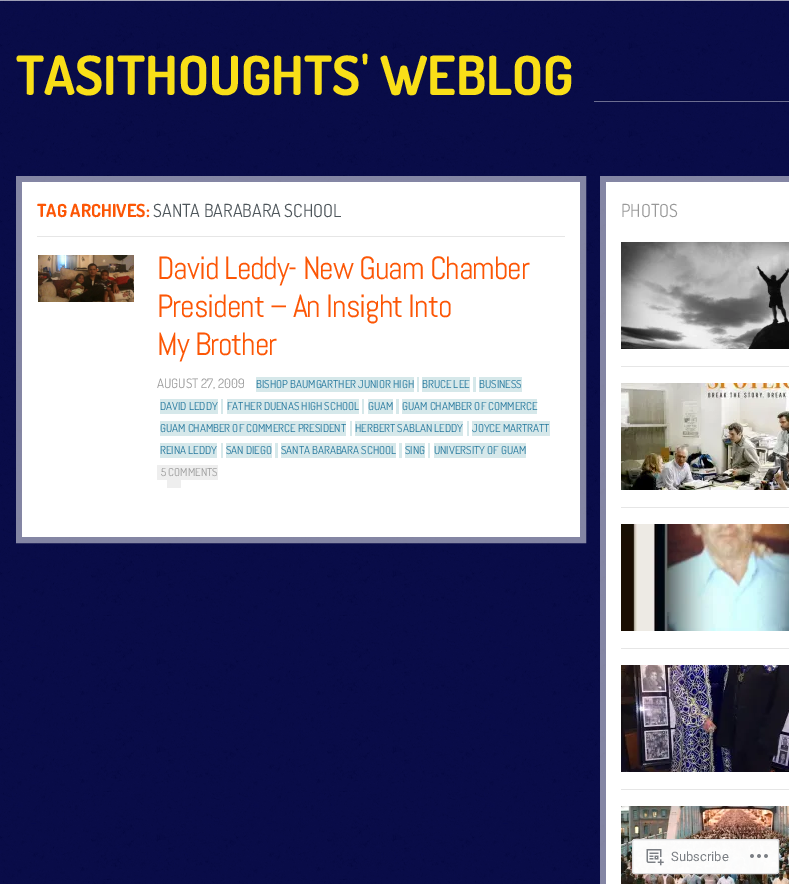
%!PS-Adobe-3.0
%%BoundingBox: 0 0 789 884
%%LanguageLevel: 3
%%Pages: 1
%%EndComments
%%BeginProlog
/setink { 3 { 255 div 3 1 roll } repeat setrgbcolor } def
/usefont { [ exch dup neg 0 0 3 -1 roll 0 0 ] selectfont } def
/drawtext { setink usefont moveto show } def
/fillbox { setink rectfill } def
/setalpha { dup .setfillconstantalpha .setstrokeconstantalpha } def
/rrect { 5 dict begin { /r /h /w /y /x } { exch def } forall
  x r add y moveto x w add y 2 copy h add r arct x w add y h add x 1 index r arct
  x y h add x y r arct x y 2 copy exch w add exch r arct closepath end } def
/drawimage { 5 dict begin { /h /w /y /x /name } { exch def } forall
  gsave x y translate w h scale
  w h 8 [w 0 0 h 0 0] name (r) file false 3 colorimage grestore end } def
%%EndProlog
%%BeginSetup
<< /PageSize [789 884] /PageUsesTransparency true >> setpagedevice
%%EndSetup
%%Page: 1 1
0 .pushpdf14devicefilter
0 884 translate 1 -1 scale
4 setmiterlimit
0 0 789 884 0 3 68 fillbox
(assets/img1.rgb) 0 0 789 884 drawimage
0.6 setalpha
0 0 789 1 255 255 255 fillbox
1 setalpha
(TASITHOUGHTS' WEBLOG) 16 95 /Dosis-Bold 54 249 223 24 drawtext
0.4 setalpha
594 101 59 1 255 255 255 fillbox
0.1 setalpha
594 100 59 1 0 0 0 fillbox
0.4 setalpha
653 101 66 1 255 255 255 fillbox
0.1 setalpha
653 100 66 1 0 0 0 fillbox
0.4 setalpha
719 101 70 1 255 255 255 fillbox
0.1 setalpha
719 100 70 1 0 0 0 fillbox
1 setalpha
22 182 558 355 255 255 255 fillbox
0.5 setalpha
6 setlinewidth
19 179 564 361 rectstroke
1 setalpha
(TAG ARCHIVES:) 37 217 /Dosis-Bold 18 252 86 5 drawtext
(SANTA BARABARA SCHOOL) 153 217 /Dosis-Regular 18 77 85 90 drawtext
37 236 528 1 230 230 230 fillbox
(assets/img2.rgb) 38 255 96 47 drawimage
/Abel-Regular 32 usefont
252 86 5 setink
157 279 moveto -1.1 0 (David Leddy- New Guam Chamber) ashow
157 317 moveto -1.1 0 (President – An Insight Into) ashow
157 355 moveto -1.1 0 (My Brother) ashow
(AUGUST 27, 2009) 157 388 /Dosis-Regular 13 153 153 153 drawtext
214 232 234 setink
257 377 moveto 414 377 lineto 414 392 lineto 257 392 lineto 256.5 392 256 391.5 256 391 curveto 256 378 lineto 256 377.5 256.5 377 257 377 curveto closepath fill
(BISHOP BAUMGARTHER JUNIOR HIGH) 256 388 /Dosis-Regular 11 33 117 155 drawtext
417 377 2 15 214 232 234 fillbox
422 377 48 15 214 232 234 fillbox
(BRUCE LEE) 422 388 /Dosis-Regular 11 33 117 155 drawtext
473 377 3 15 214 232 234 fillbox
479 377 43 15 214 232 234 fillbox
(BUSINESS) 479 388 /Dosis-Regular 11 33 117 155 drawtext
160 399 58 15 214 232 234 fillbox
(DAVID LEDDY) 160 410 /Dosis-Regular 11 33 117 155 drawtext
221 399 2 15 214 232 234 fillbox
227 399 132 15 214 232 234 fillbox
(FATHER DUENAS HIGH SCHOOL) 227 410 /Dosis-Regular 11 33 117 155 drawtext
362 399 2 15 214 232 234 fillbox
368 399 25 15 214 232 234 fillbox
(GUAM) 368 410 /Dosis-Regular 11 33 117 155 drawtext
396 399 3 15 214 232 234 fillbox
402 399 135 15 214 232 234 fillbox
(GUAM CHAMBER OF COMMERCE) 402 410 /Dosis-Regular 11 33 117 155 drawtext
160 421 186 15 214 232 234 fillbox
(GUAM CHAMBER OF COMMERCE PRESIDENT) 160 432 /Dosis-Regular 11 33 117 155 drawtext
350 421 2 15 214 232 234 fillbox
355 421 108 15 214 232 234 fillbox
(HERBERT SABLAN LEDDY) 355 432 /Dosis-Regular 11 33 117 155 drawtext
472 421 78 15 214 232 234 fillbox
(JOYCE MARTRATT) 472 432 /Dosis-Regular 11 33 117 155 drawtext
467 421 2 15 214 232 234 fillbox
160 443 57 15 214 232 234 fillbox
(REINA LEDDY) 160 454 /Dosis-Regular 11 33 117 155 drawtext
226 443 46 15 214 232 234 fillbox
(SAN DIEGO) 226 454 /Dosis-Regular 11 33 117 155 drawtext
221 443 2 15 214 232 234 fillbox
275 443 3 15 214 232 234 fillbox
281 443 115 15 214 232 234 fillbox
(SANTA BARABARA SCHOOL) 281 454 /Dosis-Regular 11 33 117 155 drawtext
399 443 3 15 214 232 234 fillbox
405 443 20 15 214 232 234 fillbox
(SING) 405 454 /Dosis-Regular 11 33 117 155 drawtext
428 443 2 15 214 232 234 fillbox
434 443 moveto 525 443 lineto 525.5 443 526 443.5 526 444 curveto 526 457 lineto 526 457.5 525.5 458 525 458 curveto 434 458 lineto closepath fill
(UNIVERSITY OF GUAM) 434 454 /Dosis-Regular 11 33 117 155 drawtext
238 238 238 setink
158 465 moveto 218 465 lineto 218 480 lineto 158 480 lineto 157.5 480 157 479.5 157 479 curveto 157 466 lineto 157 465.5 157.5 465 158 465 curveto closepath fill
(5 COMMENTS) 161 476 /Dosis-Regular 11 153 153 153 drawtext
238 238 238 setink
167 480 moveto 180 480 lineto 180.5 480 181 480.5 181 481 curveto 181 487 lineto 181 487.5 180.5 488 180 488 curveto 167 488 lineto closepath fill
606 182 183 702 255 255 255 fillbox
0.5 setalpha
603 179 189 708 rectstroke
1 setalpha
(PHOTOS) 621 217 /Dosis-Regular 18 153 153 153 drawtext
621 366 168 1 230 230 230 fillbox
(assets/img3.rgb) 621 242 168 107 drawimage
621 507 168 1 230 230 230 fillbox
(assets/img4.rgb) 621 383 168 107 drawimage
621 648 168 1 230 230 230 fillbox
(assets/img5.rgb) 621 524 168 107 drawimage
621 789 168 1 230 230 230 fillbox
(assets/img6.rgb) 621 665 168 107 drawimage
(assets/img7.rgb) 621 806 168 78 drawimage
0.98 setalpha
255 255 255 setink
632 839 147 35 3 rrect fill
220 220 222 setink
1 setlinewidth
632.5 839.5 146 34 2.5 rrect stroke
1 setalpha
(assets/img8.rgb) 646 849 18 17 drawimage
(Subscribe) 671 861 /Roboto-Regular 13 123 127 132 drawtext
(assets/img9.rgb) 750 854 18 4 drawimage
.poppdf14devicefilter showpage
%%EOF
